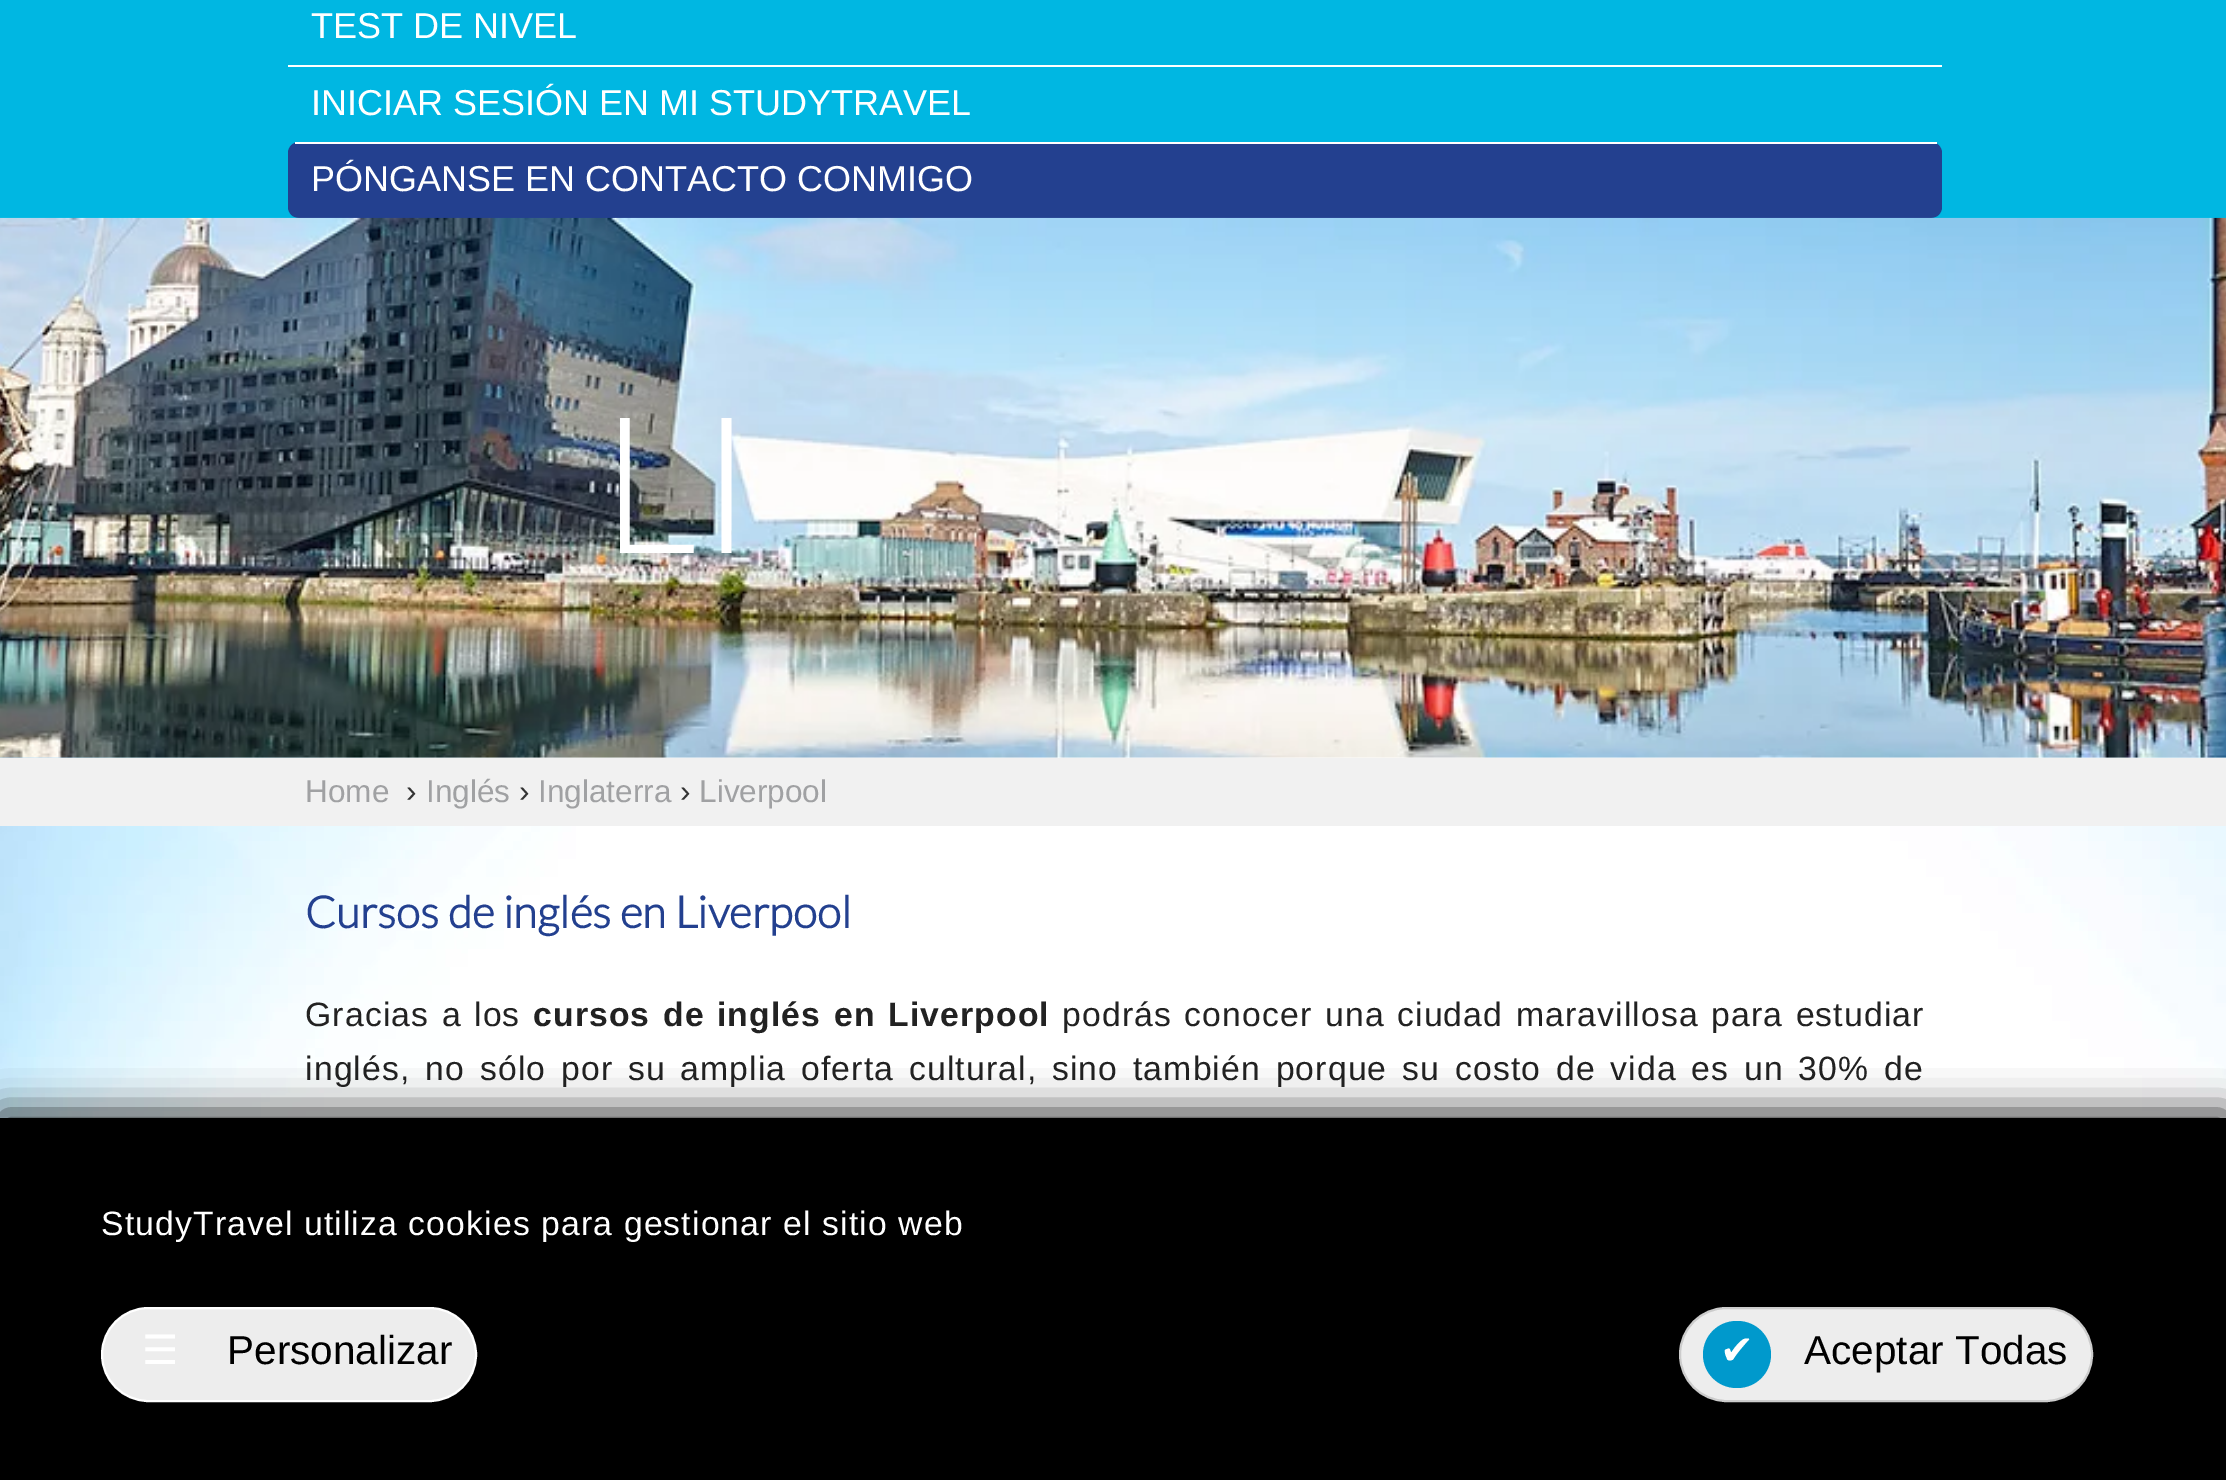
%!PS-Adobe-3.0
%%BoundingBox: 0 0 2226 1480
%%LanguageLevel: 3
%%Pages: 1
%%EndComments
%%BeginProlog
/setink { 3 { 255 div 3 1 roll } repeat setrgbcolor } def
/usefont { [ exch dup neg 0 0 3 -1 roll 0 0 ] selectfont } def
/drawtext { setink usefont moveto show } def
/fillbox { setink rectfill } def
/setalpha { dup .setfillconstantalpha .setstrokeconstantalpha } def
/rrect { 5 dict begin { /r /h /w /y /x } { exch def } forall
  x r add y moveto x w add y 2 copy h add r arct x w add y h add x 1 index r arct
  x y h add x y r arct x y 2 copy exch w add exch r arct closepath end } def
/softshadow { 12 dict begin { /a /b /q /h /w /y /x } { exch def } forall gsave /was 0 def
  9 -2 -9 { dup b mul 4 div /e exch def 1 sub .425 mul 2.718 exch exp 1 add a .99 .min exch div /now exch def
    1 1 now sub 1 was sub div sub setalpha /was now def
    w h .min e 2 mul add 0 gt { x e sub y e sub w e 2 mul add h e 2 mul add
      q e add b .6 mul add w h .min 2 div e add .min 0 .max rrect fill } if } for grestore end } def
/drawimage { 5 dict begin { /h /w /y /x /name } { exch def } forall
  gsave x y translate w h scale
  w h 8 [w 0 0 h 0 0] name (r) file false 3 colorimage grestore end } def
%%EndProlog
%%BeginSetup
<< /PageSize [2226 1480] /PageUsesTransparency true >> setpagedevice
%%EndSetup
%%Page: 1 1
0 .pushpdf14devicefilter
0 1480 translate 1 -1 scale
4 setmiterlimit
0 0 2226 1480 255 255 255 fillbox
(assets/img1.rgb) 0 757 2226 361 drawimage
0 0 2226 218 0 183 226 fillbox
(TEST DE NIVEL) 311 38 /LiberationSans-Regular 36 255 255 255 drawtext
288 65 1654 2 255 255 255 fillbox
(INICIAR SESIÓN EN MI STUDYTRAVEL) 311 115 /LiberationSans-Regular 36 255 255 255 drawtext
35 64 143 setink
288 142 1654 76 11 rrect fill
295 142 1642 2 255 255 255 fillbox
(PÓNGANSE EN CONTACTO CONMIGO) 311 191 /LiberationSans-Regular 36 255 255 255 drawtext
(assets/img2.rgb) 0 217 2226 541 drawimage
(LI) 600 553 /Lato-Light 191 255 255 255 drawtext
0 758 2226 68 241 241 241 fillbox
(Home) 305 802 /LiberationSans-Regular 31.5 160 161 163 drawtext
(›) 406 802 /LiberationSans-Regular 31.5 51 51 51 drawtext
(Inglés) 426 802 /LiberationSans-Regular 31.5 160 161 163 drawtext
(›) 519 802 /LiberationSans-Regular 31.5 51 51 51 drawtext
(Inglaterra) 538 802 /LiberationSans-Regular 31.5 160 161 163 drawtext
(›) 680 802 /LiberationSans-Regular 31.5 51 51 51 drawtext
(Liverpool) 699 802 /LiberationSans-Regular 31.5 160 161 163 drawtext
(Cursos de inglés en Liverpool) 305 928 /Lato-Bold 44.1 35 64 143 drawtext
/LiberationSans-Regular 33.75 usefont
34 34 34 setink
305 1026 moveto 2 0 32 1.12 0 (Gracias a los) awidthshow
/LiberationSans-Bold 33.75 usefont
533 1026 moveto 2 0 32 1.12 0 (cursos de inglés en Liverpool) awidthshow
/LiberationSans-Regular 33.75 usefont
1062 1026 moveto 2 0 32 1.12 0 (podrás conocer una ciudad maravillosa para estudiar) awidthshow
305 1080 moveto 4.25 0 32 1.12 0 (inglés, no sólo por su amplia oferta cultural, sino también porque su costo de vida es un 30% de) awidthshow
0 0 0 setink
0 1112 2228 362 0 19.5 0.8 softshadow
0 1118 2226 362 0 0 0 fillbox
255 255 255 setink
101 1235 moveto 1.12 0 (StudyTravel utiliza cookies para gestionar el sitio web) ashow
237 237 237 setink
102 1308 374 93 46.5 rrect gsave fill grestore
255 255 255 setink
2 setlinewidth
stroke
(☰) 142 1364 /DejaVuSans-Regular 40.5 255 255 255 drawtext
(Personalizar) 227 1364 /LiberationSans-Regular 40.5 0 0 0 drawtext
237 237 237 setink
1680 1308 412 93 46.5 rrect gsave fill grestore
204 204 204 setink
stroke
0 153 204 setink
1703 1321 68 67 33.5 rrect fill
(✔) 1720 1364 /DejaVuSans-Regular 40.5 255 255 255 drawtext
(Aceptar Todas) 1804 1364 /LiberationSans-Regular 40.5 0 0 0 drawtext
.poppdf14devicefilter showpage
%%EOF
